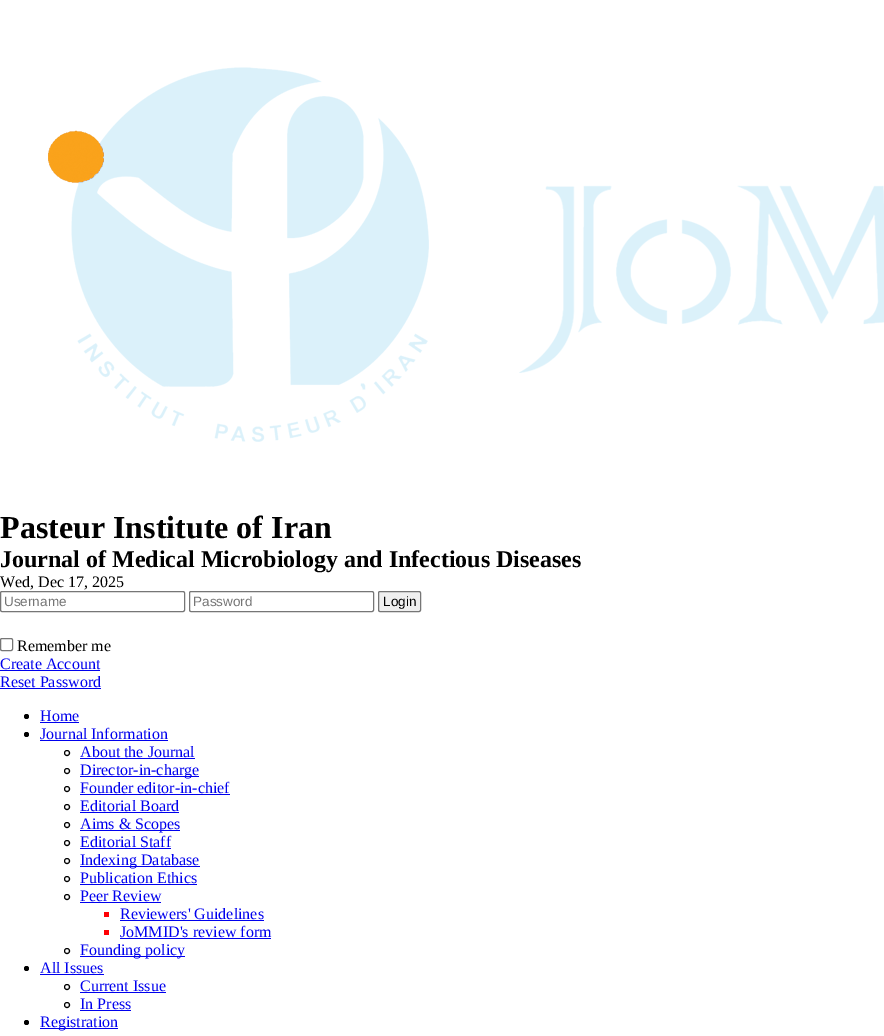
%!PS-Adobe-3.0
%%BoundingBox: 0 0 884 1036
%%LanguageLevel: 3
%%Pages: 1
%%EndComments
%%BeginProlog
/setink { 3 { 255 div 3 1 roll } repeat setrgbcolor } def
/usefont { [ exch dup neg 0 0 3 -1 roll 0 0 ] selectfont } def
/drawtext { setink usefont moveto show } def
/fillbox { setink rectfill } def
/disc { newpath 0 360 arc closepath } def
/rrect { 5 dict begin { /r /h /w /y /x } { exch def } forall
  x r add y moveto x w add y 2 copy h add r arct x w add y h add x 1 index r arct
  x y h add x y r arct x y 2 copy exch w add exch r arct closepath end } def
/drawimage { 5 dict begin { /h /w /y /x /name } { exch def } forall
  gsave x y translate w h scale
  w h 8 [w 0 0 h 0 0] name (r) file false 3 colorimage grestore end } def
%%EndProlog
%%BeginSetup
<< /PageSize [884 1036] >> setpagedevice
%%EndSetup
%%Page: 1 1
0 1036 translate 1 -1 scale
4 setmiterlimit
0 0 884 1036 255 255 255 fillbox
(assets/img1.rgb) 48 67 836 375 drawimage
(Pasteur Institute of Iran) 0 538 /LiberationSerif-Bold 32 0 0 0 drawtext
(Journal of Medical Microbiology and Infectious Diseases) 0 567 /LiberationSerif-Bold 24 0 0 0 drawtext
(Wed, Dec 17, 2025) 0 587 /LiberationSerif-Regular 16 0 0 0 drawtext
118 118 118 setink
0.5 591.5 184 20 1.5 rrect stroke
(Username) 4 606 /LiberationSans-Regular 13.5 117 117 117 drawtext
118 118 118 setink
189.5 591.5 184 20 1.5 rrect stroke
(Password) 193 606 /LiberationSans-Regular 13.5 117 117 117 drawtext
239 239 239 setink
378.5 591.5 42 20 1.5 rrect gsave fill grestore
118 118 118 setink
stroke
(Login) 383 606 /LiberationSans-Regular 13.5 0 0 0 drawtext
118 118 118 setink
0.5 638.5 12 12 1.5 rrect stroke
(Remember me) 17 651 /LiberationSerif-Regular 16 0 0 0 drawtext
(Create Account) 0 669 /LiberationSerif-Regular 16 0 0 238 drawtext
0 670 100 1 0 0 238 fillbox
(Reset Password) 0 687 /LiberationSerif-Regular 16 0 0 238 drawtext
0 688 101 1 0 0 238 fillbox
0 0 0 setink
26.5 716.5 2.5 disc fill
(Home) 40 721 /LiberationSerif-Regular 16 0 0 238 drawtext
40 722 39 1 0 0 238 fillbox
0 0 0 setink
26.5 734.5 2.5 disc fill
(Journal Information) 40 739 /LiberationSerif-Regular 16 0 0 238 drawtext
40 740 128 1 0 0 238 fillbox
0 0 0 setink
67 753 2.5 disc stroke
(About the Journal) 80 757 /LiberationSerif-Regular 16 0 0 238 drawtext
80 758 115 1 0 0 238 fillbox
0 0 0 setink
67 771 2.5 disc stroke
80 776 119 1 0 0 238 fillbox
(Director-in-charge) 80 775 /LiberationSerif-Regular 16 0 0 238 drawtext
0 0 0 setink
67 789 2.5 disc stroke
(Founder editor-in-chief) 80 793 /LiberationSerif-Regular 16 0 0 238 drawtext
80 794 150 1 0 0 238 fillbox
0 0 0 setink
67 807 2.5 disc stroke
(Editorial Board) 80 811 /LiberationSerif-Regular 16 0 0 238 drawtext
80 812 99 1 0 0 238 fillbox
0 0 0 setink
67 825 2.5 disc stroke
80 830 100 1 0 0 238 fillbox
(Aims & Scopes) 80 829 /LiberationSerif-Regular 16 0 0 238 drawtext
0 0 0 setink
67 843 2.5 disc stroke
(Editorial Staff) 80 847 /LiberationSerif-Regular 16 0 0 238 drawtext
80 848 91 1 0 0 238 fillbox
0 0 0 setink
67 861 2.5 disc stroke
80 866 120 1 0 0 238 fillbox
(Indexing Database) 80 865 /LiberationSerif-Regular 16 0 0 238 drawtext
0 0 0 setink
67 879 2.5 disc stroke
(Publication Ethics) 80 883 /LiberationSerif-Regular 16 0 0 238 drawtext
80 884 117 1 0 0 238 fillbox
0 0 0 setink
67 897 2.5 disc stroke
(Peer Review) 80 901 /LiberationSerif-Regular 16 0 0 238 drawtext
80 902 81 1 0 0 238 fillbox
104 912 5 5 255 0 4 fillbox
(Reviewers' Guidelines) 120 919 /LiberationSerif-Regular 16 0 0 238 drawtext
120 920 144 1 0 0 238 fillbox
104 930 5 5 255 0 4 fillbox
(JoMMID's review form) 120 937 /LiberationSerif-Regular 16 0 0 238 drawtext
120 938 151 1 0 0 238 fillbox
0 0 0 setink
67 951 2.5 disc stroke
80 956 105 1 0 0 238 fillbox
(Founding policy) 80 955 /LiberationSerif-Regular 16 0 0 238 drawtext
0 0 0 setink
26.5 968.5 2.5 disc fill
(All Issues) 40 973 /LiberationSerif-Regular 16 0 0 238 drawtext
40 974 64 1 0 0 238 fillbox
0 0 0 setink
67 987 2.5 disc stroke
(Current Issue) 80 991 /LiberationSerif-Regular 16 0 0 238 drawtext
80 992 86 1 0 0 238 fillbox
0 0 0 setink
67 1005 2.5 disc stroke
(In Press) 80 1009 /LiberationSerif-Regular 16 0 0 238 drawtext
80 1010 51 1 0 0 238 fillbox
0 0 0 setink
26.5 1022.5 2.5 disc fill
40 1028 78 1 0 0 238 fillbox
(Registration) 40 1027 /LiberationSerif-Regular 16 0 0 238 drawtext
showpage
%%EOF
